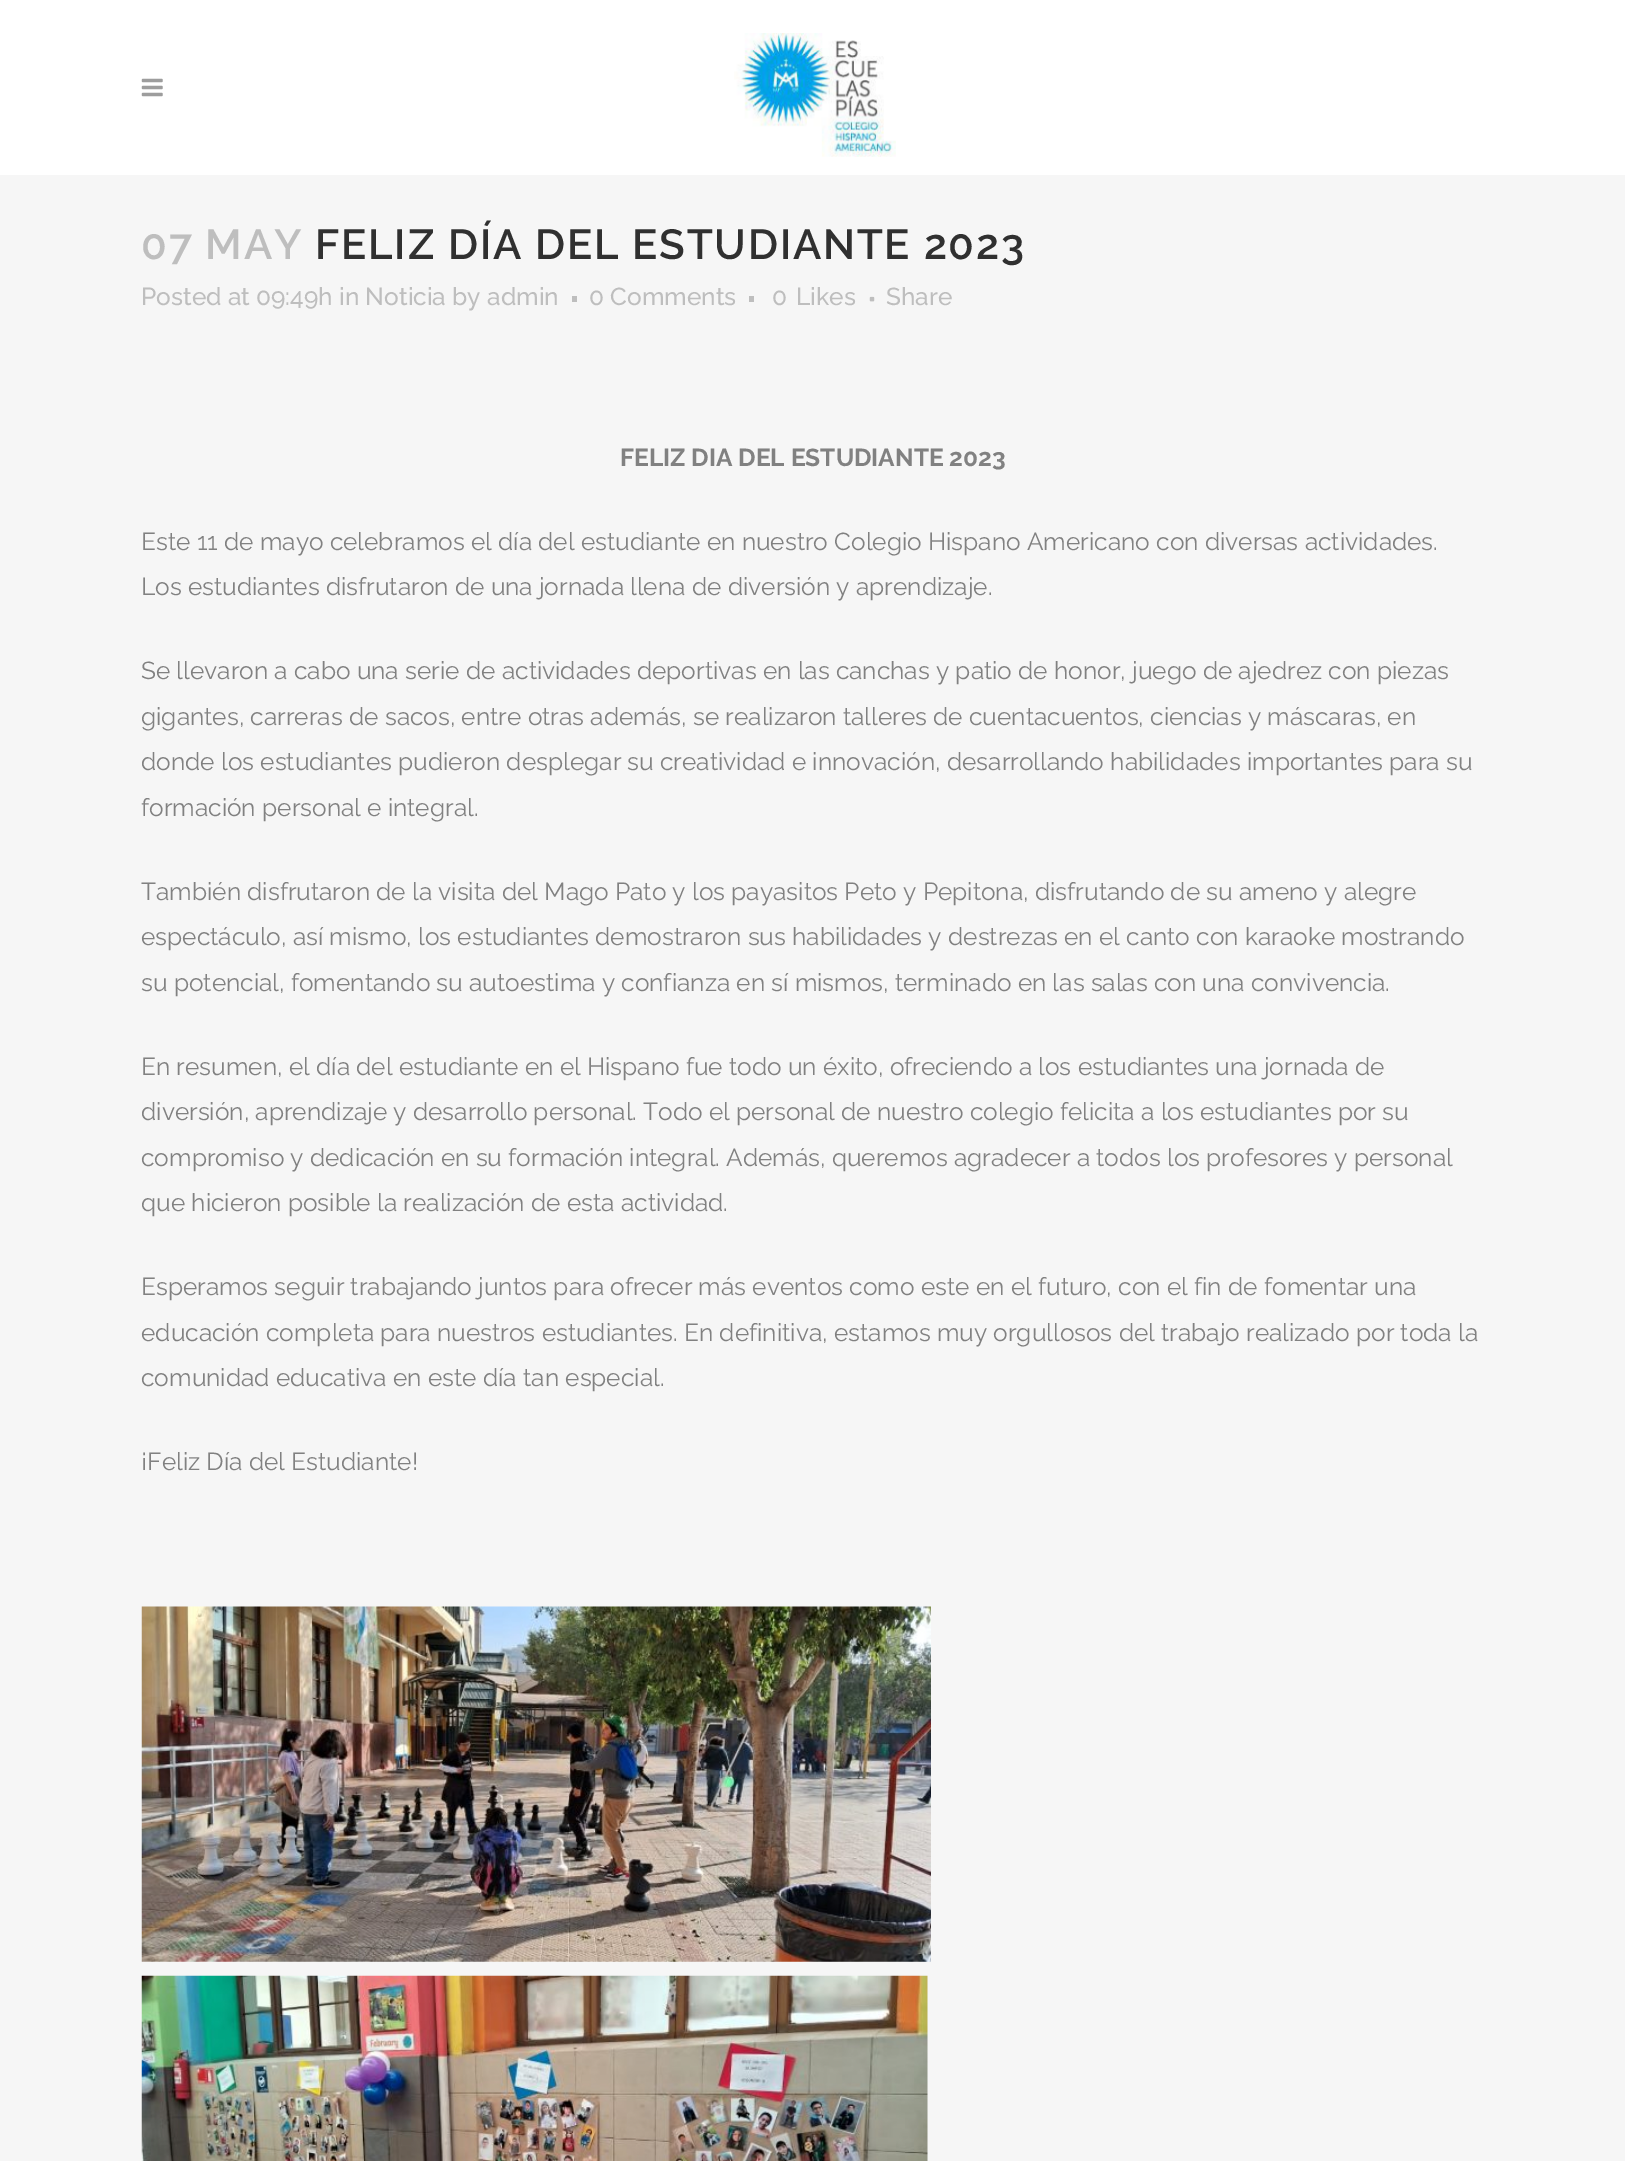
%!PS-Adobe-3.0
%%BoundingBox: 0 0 1625 2161
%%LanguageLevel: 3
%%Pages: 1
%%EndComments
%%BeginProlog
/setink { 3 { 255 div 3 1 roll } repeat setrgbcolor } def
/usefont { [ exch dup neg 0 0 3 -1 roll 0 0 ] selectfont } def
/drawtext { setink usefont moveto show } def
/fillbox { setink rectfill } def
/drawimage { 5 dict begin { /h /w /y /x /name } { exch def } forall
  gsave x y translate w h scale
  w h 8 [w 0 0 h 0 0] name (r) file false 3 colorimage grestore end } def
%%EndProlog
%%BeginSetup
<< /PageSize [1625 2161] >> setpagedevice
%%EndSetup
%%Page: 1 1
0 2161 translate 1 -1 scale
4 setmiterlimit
0 0 1625 2161 246 246 246 fillbox
0 0 1625 175 255 255 255 fillbox
(assets/img1.rgb) 141 78 22 19 drawimage
(assets/img2.rgb) 734 33 162 124 drawimage
/Raleway-SemiBold 42 usefont
190 190 190 setink
141 259 moveto 1.75 0 (07 MAY) ashow
48 48 48 setink
315 259 moveto 1.75 0 (FELIZ DÍA DEL ESTUDIANTE 2023) ashow
(Posted at 09:49h in Noticia by admin) 141 305 /Raleway-Medium 24.5 190 190 190 drawtext
572 296 5 6 190 190 190 fillbox
(0 Comments) 589 305 /Raleway-Medium 24.5 190 190 190 drawtext
749 296 5 6 190 190 190 fillbox
(0) 772 305 /Raleway-Medium 24.5 190 190 190 drawtext
(Likes) 796 305 /Raleway-Medium 24.5 190 190 190 drawtext
(assets/img3.rgb) 869 296 6 6 drawimage
(Share) 886 305 /Raleway-Medium 24.5 190 190 190 drawtext
(FELIZ DIA DEL ESTUDIANTE 2023) 620 466 /Raleway-Bold 24.5 129 129 129 drawtext
(Este 11 de mayo celebramos el día del estudiante en nuestro Colegio Hispano Americano con diversas actividades.) 141 550 /Raleway-Regular 24.5 129 129 129 drawtext
(Los estudiantes disfrutaron de una jornada llena de diversión y aprendizaje.) 141 595 /Raleway-Regular 24.5 129 129 129 drawtext
(Se llevaron a cabo una serie de actividades deportivas en las canchas y patio de honor, juego de ajedrez con piezas) 141 679 /Raleway-Regular 24.5 129 129 129 drawtext
(gigantes, carreras de sacos, entre otras además, se realizaron talleres de cuentacuentos, ciencias y máscaras, en) 141 725 /Raleway-Regular 24.5 129 129 129 drawtext
(donde los estudiantes pudieron desplegar su creatividad e innovación, desarrollando habilidades importantes para su) 141 770 /Raleway-Regular 24.5 129 129 129 drawtext
(formación personal e integral.) 141 816 /Raleway-Regular 24.5 129 129 129 drawtext
(También disfrutaron de la visita del Mago Pato y los payasitos Peto y Pepitona, disfrutando de su ameno y alegre) 141 900 /Raleway-Regular 24.5 129 129 129 drawtext
(espectáculo, así mismo, los estudiantes demostraron sus habilidades y destrezas en el canto con karaoke mostrando) 141 945 /Raleway-Regular 24.5 129 129 129 drawtext
(su potencial, fomentando su autoestima y confianza en sí mismos, terminado en las salas con una convivencia.) 141 991 /Raleway-Regular 24.5 129 129 129 drawtext
(En resumen, el día del estudiante en el Hispano fue todo un éxito, ofreciendo a los estudiantes una jornada de) 141 1075 /Raleway-Regular 24.5 129 129 129 drawtext
(diversión, aprendizaje y desarrollo personal. Todo el personal de nuestro colegio felicita a los estudiantes por su) 141 1120 /Raleway-Regular 24.5 129 129 129 drawtext
(compromiso y dedicación en su formación integral. Además, queremos agradecer a todos los profesores y personal) 141 1166 /Raleway-Regular 24.5 129 129 129 drawtext
(que hicieron posible la realización de esta actividad.) 141 1211 /Raleway-Regular 24.5 129 129 129 drawtext
(Esperamos seguir trabajando juntos para ofrecer más eventos como este en el futuro, con el fin de fomentar una) 141 1295 /Raleway-Regular 24.5 129 129 129 drawtext
(educación completa para nuestros estudiantes. En definitiva, estamos muy orgullosos del trabajo realizado por toda la) 141 1341 /Raleway-Regular 24.5 129 129 129 drawtext
(comunidad educativa en este día tan especial.) 141 1386 /Raleway-Regular 24.5 129 129 129 drawtext
(¡Feliz Día del Estudiante!) 141 1470 /Raleway-Regular 24.5 129 129 129 drawtext
(assets/img4.rgb) 141 1606 790 356 drawimage
(assets/img5.rgb) 141 1975 787 186 drawimage
showpage
%%EOF
